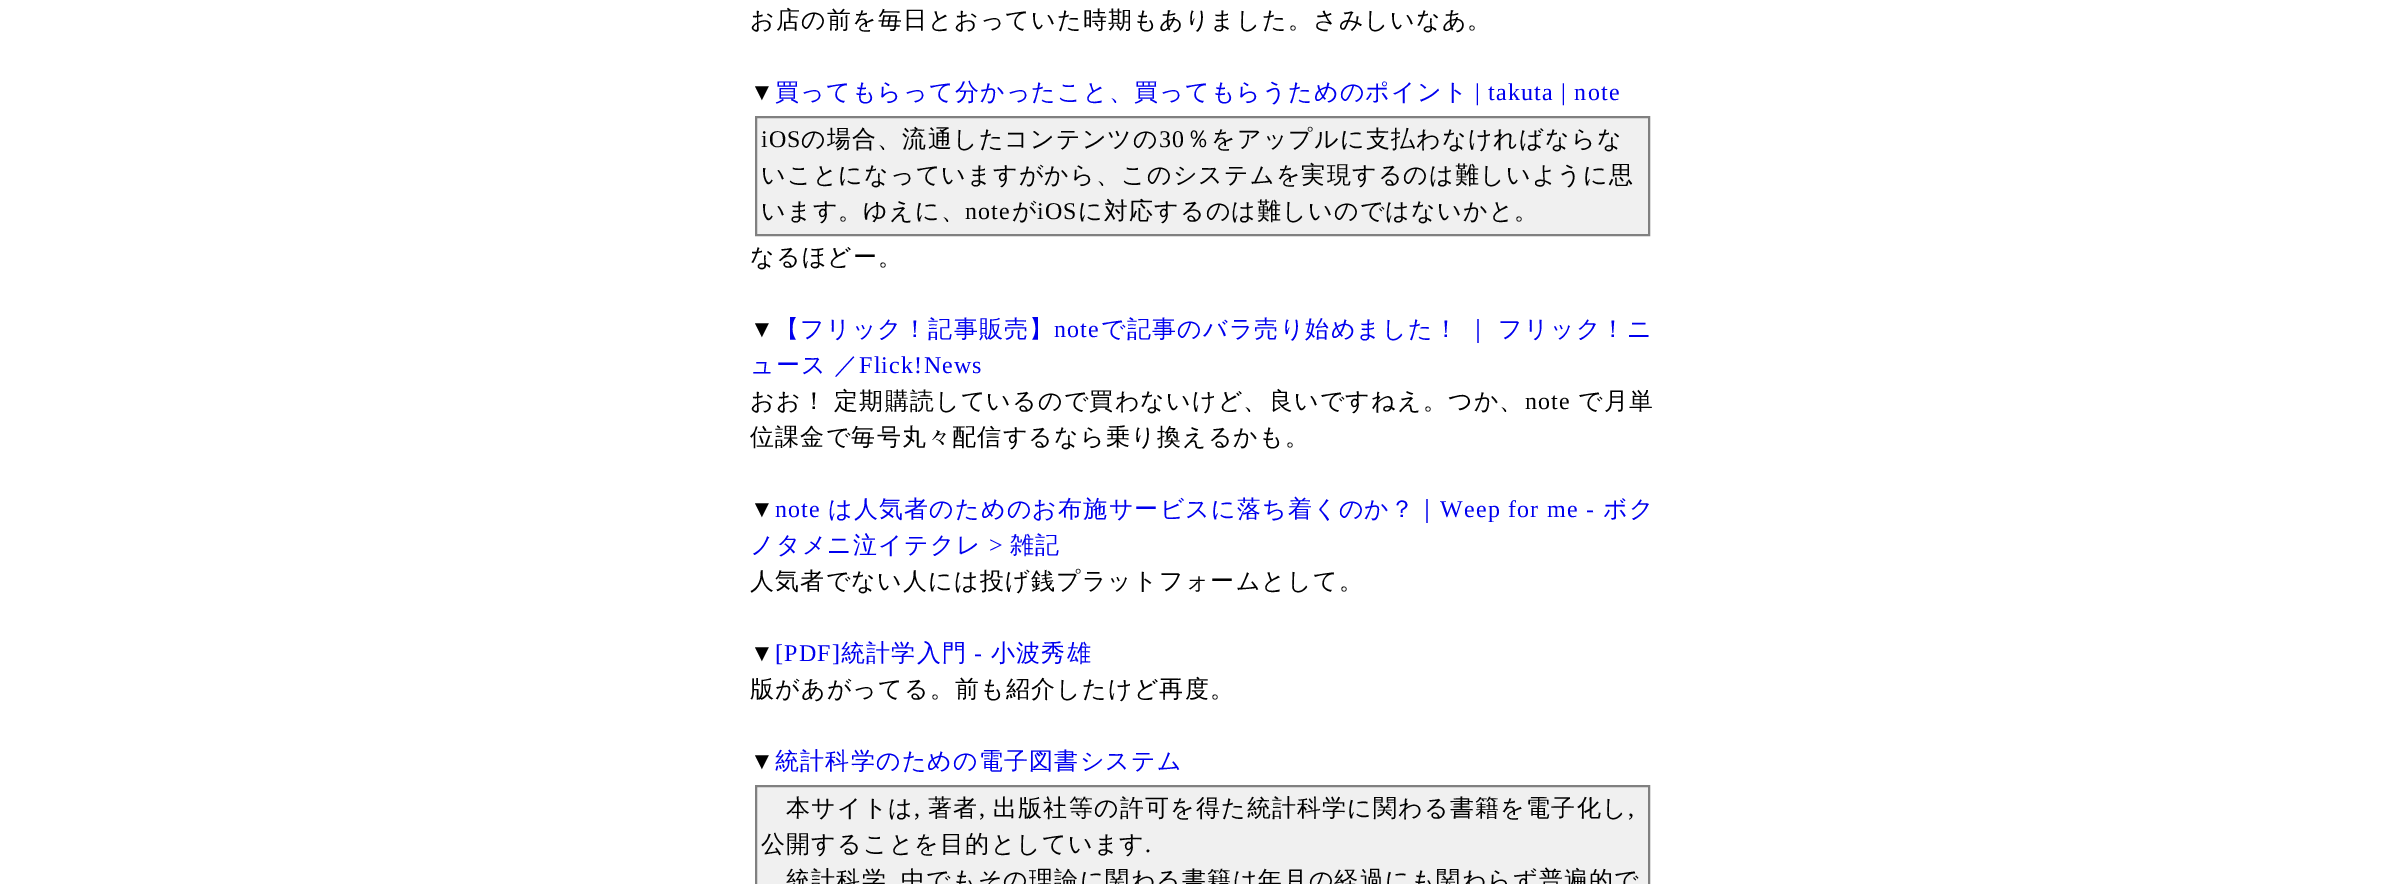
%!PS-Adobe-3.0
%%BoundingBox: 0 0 2403 884
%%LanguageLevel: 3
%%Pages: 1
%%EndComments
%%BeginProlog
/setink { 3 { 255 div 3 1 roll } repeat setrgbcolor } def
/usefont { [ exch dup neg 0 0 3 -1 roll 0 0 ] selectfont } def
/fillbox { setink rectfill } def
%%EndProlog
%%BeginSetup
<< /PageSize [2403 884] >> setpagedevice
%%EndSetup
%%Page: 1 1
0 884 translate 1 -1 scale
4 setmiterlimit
0 0 2403 884 255 255 255 fillbox
/WenQuanYiZenHei-Medium 24 usefont
0 0 0 setink
750 28 moveto 1.2 0 (お店の前を毎日とおっていた時期もありました。さみしいなあ。) ashow
/LiberationSerif-Regular 24 usefont
750 100 moveto 1.2 0 (▼) ashow
/WenQuanYiZenHei-Medium 24 usefont
0 0 238 setink
775 100 moveto 1.2 0 (買ってもらって分かったこと、買ってもらうためのポイント) ashow
/LiberationSerif-Regular 24 usefont
1475 100 moveto 1.2 0 (| takuta | note) ashow
240 240 240 setink
756 117 moveto 1649 117 lineto 1649 235 lineto 756 235 lineto closepath gsave fill grestore
128 128 128 setink
2 setlinewidth
stroke
0 0 0 setink
761 147 moveto 1.2 0 (iOS) ashow
/WenQuanYiZenHei-Medium 24 usefont
801 147 moveto 1.2 0 (の場合、流通したコンテンツの) ashow
/LiberationSerif-Regular 24 usefont
1159 147 moveto 1.2 0 (30) ashow
/WenQuanYiZenHei-Medium 24 usefont
1186 147 moveto 1.2 0 (％をアップルに支払わなければならな) ashow
761 183 moveto 1.2 0 (いことになっていますがから、このシステムを実現するのは難しいように思) ashow
761 219 moveto 1.2 0 (います。ゆえに、) ashow
/LiberationSerif-Regular 24 usefont
965 219 moveto 1.2 0 (note) ashow
/WenQuanYiZenHei-Medium 24 usefont
1012 219 moveto 1.2 0 (が) ashow
/LiberationSerif-Regular 24 usefont
1037 219 moveto 1.2 0 (iOS) ashow
/WenQuanYiZenHei-Medium 24 usefont
1078 219 moveto 1.2 0 (に対応するのは難しいのではないかと。) ashow
750 265 moveto 1.2 0 (なるほどー。) ashow
/LiberationSerif-Regular 24 usefont
750 337 moveto 1.2 0 (▼) ashow
/WenQuanYiZenHei-Medium 24 usefont
0 0 238 setink
775 337 moveto 1.2 0 (【フリック！記事販売】) ashow
/LiberationSerif-Regular 24 usefont
1054 337 moveto 1.2 0 (note) ashow
/WenQuanYiZenHei-Medium 24 usefont
1101 337 moveto -1 0 32 1.2 0 (で記事のバラ売り始めました！ ｜ フリック！ニ) awidthshow
750 373 moveto -1 0 32 1.2 0 (ュース ／) awidthshow
/LiberationSerif-Regular 24 usefont
859 373 moveto 1.2 0 (Flick!News) ashow
/WenQuanYiZenHei-Medium 24 usefont
0 0 0 setink
750 409 moveto -1 0 32 1.2 0 (おお！ 定期購読しているので買わないけど、良いですねえ。つか、) awidthshow
/LiberationSerif-Regular 24 usefont
1525 409 moveto 1.2 0 (note) ashow
/WenQuanYiZenHei-Medium 24 usefont
1578 409 moveto 1.2 0 (で月単) ashow
750 445 moveto 1.2 0 (位課金で毎号丸々配信するなら乗り換えるかも。) ashow
/LiberationSerif-Regular 24 usefont
750 517 moveto 1.2 0 (▼) ashow
0 0 238 setink
775 517 moveto 1.2 0 (note) ashow
/WenQuanYiZenHei-Medium 24 usefont
828 517 moveto 1.2 0 (は人気者のためのお布施サービスに落ち着くのか？｜) ashow
/LiberationSerif-Regular 24 usefont
1440 517 moveto 1.2 0 (Weep for me -) ashow
/WenQuanYiZenHei-Medium 24 usefont
1603 517 moveto 1.2 0 (ボク) ashow
750 553 moveto 1.2 0 (ノタメニ泣イテクレ) ashow
/LiberationSerif-Regular 24 usefont
989 553 moveto 1.2 0 (>) ashow
/WenQuanYiZenHei-Medium 24 usefont
1010 553 moveto 1.2 0 (雑記) ashow
0 0 0 setink
750 589 moveto 1.2 0 (人気者でない人には投げ銭プラットフォームとして。) ashow
/LiberationSerif-Regular 24 usefont
750 661 moveto 1.2 0 (▼) ashow
0 0 238 setink
775 661 moveto 1.2 0 ([PDF]) ashow
/WenQuanYiZenHei-Medium 24 usefont
841 661 moveto 1.2 0 (統計学入門) ashow
/LiberationSerif-Regular 24 usefont
974 661 moveto 1.2 0 (-) ashow
/WenQuanYiZenHei-Medium 24 usefont
991 661 moveto 1.2 0 (小波秀雄) ashow
0 0 0 setink
750 697 moveto 1.2 0 (版があがってる。前も紹介したけど再度。) ashow
/LiberationSerif-Regular 24 usefont
750 769 moveto 1.2 0 (▼) ashow
/WenQuanYiZenHei-Medium 24 usefont
0 0 238 setink
775 769 moveto 1.2 0 (統計科学のための電子図書システム) ashow
240 240 240 setink
756 786 moveto 1649 786 lineto 1649 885 lineto 756 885 lineto closepath gsave fill grestore
128 128 128 setink
stroke
0 0 0 setink
786 816 moveto 1.2 0 (本サイトは) ashow
/LiberationSerif-Regular 24 usefont
914 816 moveto 1.2 0 (,) ashow
/WenQuanYiZenHei-Medium 24 usefont
928 816 moveto 1.2 0 (著者) ashow
/LiberationSerif-Regular 24 usefont
979 816 moveto 1.2 0 (,) ashow
/WenQuanYiZenHei-Medium 24 usefont
993 816 moveto 1.2 0 (出版社等の許可を得た統計科学に関わる書籍を電子化し) ashow
/LiberationSerif-Regular 24 usefont
1628 816 moveto 1.2 0 (,) ashow
/WenQuanYiZenHei-Medium 24 usefont
761 852 moveto 1.2 0 (公開することを目的としています) ashow
/LiberationSerif-Regular 24 usefont
1145 852 moveto 1.2 0 (.) ashow
/WenQuanYiZenHei-Medium 24 usefont
786 888 moveto 1.2 0 (統計科学) ashow
901 888 moveto 1.2 0 (中でもその理論に関わる書籍は年月の経過にも関わらず普遍的で) ashow
showpage
%%EOF
